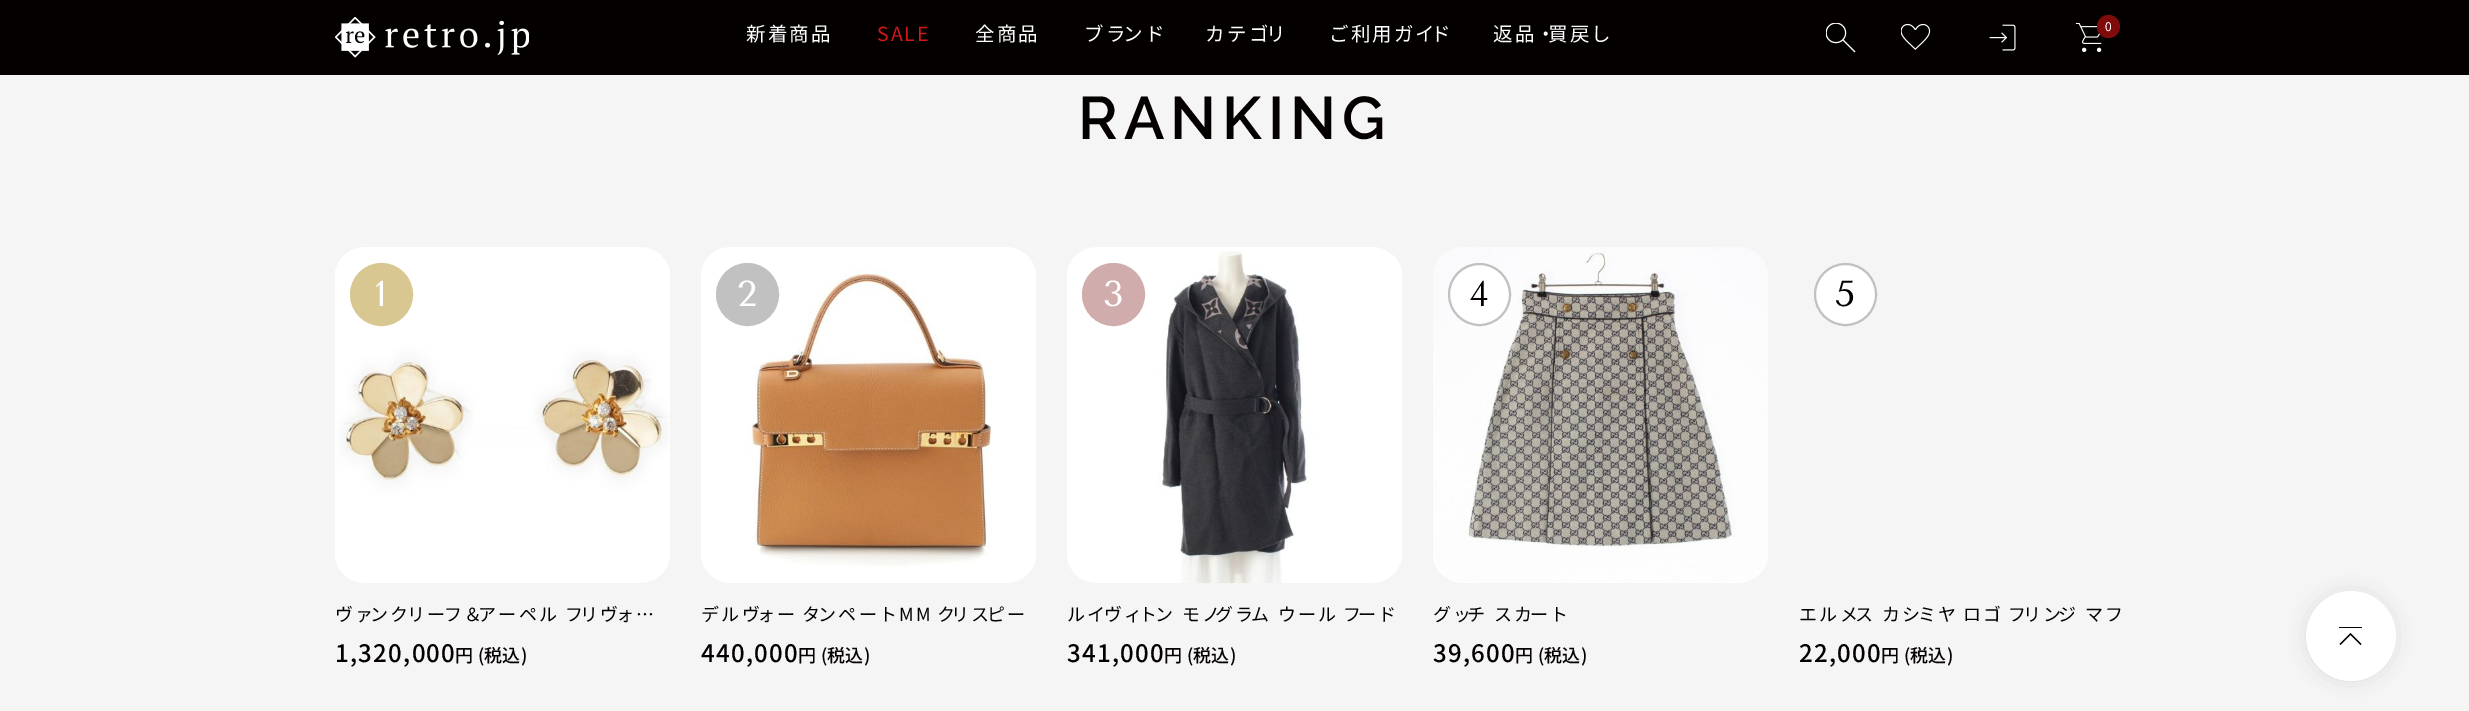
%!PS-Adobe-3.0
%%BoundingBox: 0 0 2469 711
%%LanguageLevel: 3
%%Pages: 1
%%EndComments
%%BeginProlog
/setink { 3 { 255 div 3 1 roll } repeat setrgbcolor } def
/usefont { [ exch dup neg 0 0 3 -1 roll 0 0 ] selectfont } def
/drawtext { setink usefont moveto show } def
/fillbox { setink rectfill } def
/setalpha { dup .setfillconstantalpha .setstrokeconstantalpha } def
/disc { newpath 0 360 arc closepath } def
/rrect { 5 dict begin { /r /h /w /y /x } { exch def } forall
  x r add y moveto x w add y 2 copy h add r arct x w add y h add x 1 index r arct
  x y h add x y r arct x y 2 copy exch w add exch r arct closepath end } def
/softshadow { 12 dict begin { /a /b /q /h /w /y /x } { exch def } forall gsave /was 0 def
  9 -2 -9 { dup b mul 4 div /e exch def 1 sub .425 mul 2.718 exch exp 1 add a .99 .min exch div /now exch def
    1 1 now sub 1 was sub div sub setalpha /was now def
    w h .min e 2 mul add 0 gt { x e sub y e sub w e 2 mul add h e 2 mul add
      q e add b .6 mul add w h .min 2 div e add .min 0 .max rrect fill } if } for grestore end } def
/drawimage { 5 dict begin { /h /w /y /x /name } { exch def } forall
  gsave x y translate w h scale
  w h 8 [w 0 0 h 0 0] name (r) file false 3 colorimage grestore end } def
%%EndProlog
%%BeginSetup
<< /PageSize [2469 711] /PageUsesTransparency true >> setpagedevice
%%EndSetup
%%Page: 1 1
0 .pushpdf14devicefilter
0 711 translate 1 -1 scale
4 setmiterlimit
0 0 2469 711 245 245 245 fillbox
0 0 2469 75 4 0 0 fillbox
/NotoSansJP-Regular 19.5 usefont
255 255 255 setink
746 41 moveto 2 0 (新着商品) ashow
207 24 24 setink
877 41 moveto 2 0 (SALE) ashow
255 255 255 setink
975 41 moveto 2 0 (全商品) ashow
1084 41 moveto 2.25 0 (ブラ) ashow
1123 41 moveto 2.25 0 (ンド) ashow
1205 41 moveto 2.25 0 (カテゴ) ashow
1266 41 moveto 2.25 0 (リ) ashow
1329 41 moveto 2 0 (ご利用ガイ) ashow
1431 41 moveto 2 0 (ド) ashow
1493 41 moveto 2 0 (返品・) ashow
1548 41 moveto 2 0 (買戻し) ashow
(assets/img1.rgb) 335 17 194 41 drawimage
(assets/img2.rgb) 1826 23 30 30 drawimage
(assets/img3.rgb) 1901 23 30 27 drawimage
(assets/img4.rgb) 1989 24 27 27 drawimage
(assets/img5.rgb) 2075 23 27 29 drawimage
127 11 11 setink
2108.5 26.5 11.5 disc fill
(0) 2105 31 /NotoSansJP-Regular 12 255 255 255 drawtext
/Raleway-SemiBold 60 usefont
4 0 0 setink
1078 139 moveto 6 0 (RANKING) ashow
(assets/img6.rgb) 335 247 335 336 drawimage
216 199 145 setink
381.5 294.5 30.5 disc gsave fill grestore
2 setlinewidth
stroke
(1) 375 306 /TenorSans-Regular 36 255 255 255 drawtext
/NotoSansJP-Regular 18 usefont
4 0 0 setink
335 621 moveto 2.25 0 (ヴァ) ashow
370 621 moveto 2.25 0 (ンク) ashow
407 621 moveto 2.25 0 (リー) ashow
444 621 moveto 2.25 0 (フ＆) ashow
478 621 moveto 2.25 0 (アーペル フ) ashow
580 621 moveto 2.25 0 (リヴ) ashow
616 621 moveto 2.25 0 (ォ…) ashow
/NotoSansJP-Medium 24 usefont
335 662 moveto 1.25 0 (1,320,000) ashow
/NotoSansJP-Medium 18 usefont
455 662 moveto 0.25 0 (円 \(税込\)) ashow
(assets/img7.rgb) 701 247 335 336 drawimage
193 193 193 setink
747.5 294.5 30.5 disc gsave fill grestore
stroke
(2) 737 306 /TenorSans-Regular 36 255 255 255 drawtext
/NotoSansJP-Regular 18 usefont
4 0 0 setink
701 621 moveto 2.25 0 (デルヴ) ashow
757 621 moveto 2.25 0 (ォー) ashow
802 621 moveto 2.25 0 (タ) ashow
818 621 moveto 2.25 0 (ンペートMM) ashow
937 621 moveto 2.25 0 (ク) ashow
951 621 moveto 2.25 0 (リス) ashow
987 621 moveto 2.25 0 (ピー) ashow
/NotoSansJP-Medium 24 usefont
701 662 moveto 1.25 0 (440,000) ashow
/NotoSansJP-Medium 18 usefont
798 662 moveto 0.25 0 (円 \(税込\)) ashow
(assets/img8.rgb) 1067 247 335 336 drawimage
208 172 172 setink
1113.5 294.5 30.5 disc gsave fill grestore
stroke
(3) 1103 306 /TenorSans-Regular 36 255 255 255 drawtext
/NotoSansJP-Regular 18 usefont
4 0 0 setink
1067 621 moveto 2.25 0 (ルイ) ashow
1104 621 moveto 2.25 0 (ヴィ) ashow
1139 621 moveto 2.25 0 (ト) ashow
1155 621 moveto 2.25 0 (ン モノ) ashow
1215 621 moveto 2.25 0 (グラ) ashow
1251 621 moveto 2.25 0 (ム ウール) ashow
1343 621 moveto 2.25 0 (フ) ashow
1358 621 moveto 2.25 0 (ード) ashow
/NotoSansJP-Medium 24 usefont
1067 662 moveto 1.25 0 (341,000) ashow
/NotoSansJP-Medium 18 usefont
1164 662 moveto 0.25 0 (円 \(税込\)) ashow
(assets/img9.rgb) 1433 247 335 336 drawimage
255 255 255 setink
1479.5 294.5 30.5 disc gsave fill grestore
193 193 193 setink
stroke
(4) 1469 306 /TenorSans-Regular 36 4 0 0 drawtext
/NotoSansJP-Regular 18 usefont
1433 621 moveto 2.25 0 (グッ) ashow
1467 621 moveto 2.25 0 (チ スカ) ashow
1530 621 moveto 2.25 0 (ート) ashow
/NotoSansJP-Medium 24 usefont
1433 662 moveto 1.25 0 (39,600) ashow
/NotoSansJP-Medium 18 usefont
1515 662 moveto 0.25 0 (円 \(税込\)) ashow
255 255 255 setink
1845.5 294.5 30.5 disc gsave fill grestore
193 193 193 setink
stroke
(5) 1835 306 /TenorSans-Regular 36 4 0 0 drawtext
/NotoSansJP-Regular 18 usefont
1799 621 moveto 2.25 0 (エルメ) ashow
1855 621 moveto 2.25 0 (ス カシ) ashow
1918 621 moveto 2.25 0 (ミヤ) ashow
1963 621 moveto 2.25 0 (ロゴ) ashow
2008 621 moveto 2.25 0 (フ) ashow
2023 621 moveto 2.25 0 (リン) ashow
2058 621 moveto 2.25 0 (ジ マフ) ashow
/NotoSansJP-Medium 24 usefont
1799 662 moveto 1.25 0 (22,000) ashow
/NotoSansJP-Medium 18 usefont
1881 662 moveto 0.25 0 (円 \(税込\)) ashow
193 193 193 setink
2313 599 75 75 37.5 11 1 softshadow
255 255 255 setink
2351 636 45 disc fill
4 0 0 setink
2340.5 645 moveto 2339.5 644 lineto 2350.5 633 lineto 2361.5 644 lineto 2360.5 645 lineto 2350.5 635 lineto closepath fill
2339 627 23 1 4 0 0 fillbox
.poppdf14devicefilter showpage
%%EOF
